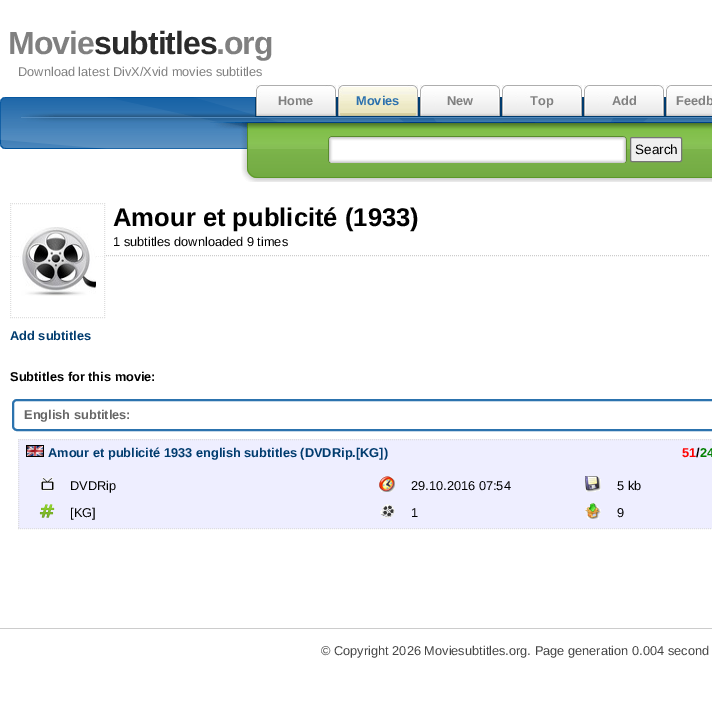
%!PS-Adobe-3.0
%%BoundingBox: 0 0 712 703
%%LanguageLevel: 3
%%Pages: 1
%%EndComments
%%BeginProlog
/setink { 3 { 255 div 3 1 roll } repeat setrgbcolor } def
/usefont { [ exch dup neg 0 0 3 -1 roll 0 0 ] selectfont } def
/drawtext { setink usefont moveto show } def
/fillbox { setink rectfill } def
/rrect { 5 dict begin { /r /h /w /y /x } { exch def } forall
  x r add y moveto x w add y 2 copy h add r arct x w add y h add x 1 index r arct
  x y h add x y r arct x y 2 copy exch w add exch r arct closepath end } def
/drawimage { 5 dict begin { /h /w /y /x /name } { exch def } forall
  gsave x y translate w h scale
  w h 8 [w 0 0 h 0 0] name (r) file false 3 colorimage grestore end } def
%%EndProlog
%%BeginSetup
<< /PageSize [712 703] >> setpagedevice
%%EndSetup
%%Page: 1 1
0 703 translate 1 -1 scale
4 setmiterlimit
0 0 712 703 255 255 255 fillbox
/LiberationSans-Bold 32 usefont
128 128 128 setink
8 54 moveto -1 0 (Movie) ashow
43 43 43 setink
94 54 moveto -1 0 (subtitles) ashow
128 128 128 setink
216 54 moveto -1 0 (.org) ashow
(Download latest DivX/Xvid movies subtitles) 18 76 /LiberationSans-Regular 12.8 128 128 128 drawtext
(assets/img1.rgb) 0 85 712 64 drawimage
(assets/img2.rgb) 255 85 82 32 drawimage
(Home) 278 105 /LiberationSans-Bold 12.8 128 128 128 drawtext
(assets/img3.rgb) 337 85 82 32 drawimage
(Movies) 356 105 /LiberationSans-Bold 12.8 44 113 174 drawtext
(assets/img2.rgb) 419 85 82 32 drawimage
(New) 447 105 /LiberationSans-Bold 12.8 128 128 128 drawtext
(assets/img2.rgb) 501 85 82 32 drawimage
(Top) 530 105 /LiberationSans-Bold 12.8 128 128 128 drawtext
(assets/img2.rgb) 583 85 82 32 drawimage
(Add) 612 105 /LiberationSans-Bold 12.8 128 128 128 drawtext
(assets/img4.rgb) 665 85 47 32 drawimage
(Feedb) 676 105 /LiberationSans-Bold 12.8 128 128 128 drawtext
(assets/img5.rgb) 210 122 502 60 drawimage
(assets/img6.rgb) 328 136 299 27 drawimage
239 239 239 setink
630.5 137.5 51 24 1.5 rrect gsave fill grestore
118 118 118 setink
stroke
(Search) 635 154 /LiberationSans-Regular 13.5 0 0 0 drawtext
204 204 204 setink
[1 1] 0 setdash
10 255.5 moveto 710 255.5 lineto stroke
10 255 95 1 255 255 255 fillbox
222 222 222 setink
10 203.5 moveto 105 203.5 lineto stroke
104.5 203 moveto 104.5 318 lineto stroke
10 317.5 moveto 105 317.5 lineto stroke
10.5 203 moveto 10.5 318 lineto stroke
(assets/img7.rgb) 20 227 76 69 drawimage
(Amour et publicité \(1933\)) 113 226 /LiberationSans-Bold 25.6 0 0 0 drawtext
(1 subtitles downloaded 9 times) 113 246 /LiberationSans-Regular 12.8 0 0 0 drawtext
(Add subtitles) 10 340 /LiberationSans-Bold 12.8 0 59 110 drawtext
(Subtitles for this movie:) 10 381 /LiberationSans-Bold 12.8 0 0 0 drawtext
44 115 174 setink
2 setlinewidth
[] 0 setdash
13 400 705 30 4 rrect stroke
(English subtitles:) 24 419 /LiberationSans-Bold 12.8 102 102 102 drawtext
18 439 694 90 238 238 255 fillbox
222 222 222 setink
1 setlinewidth
[1 1] 0 setdash
18 439.5 moveto 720 439.5 lineto stroke
18 528.5 moveto 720 528.5 lineto stroke
18.5 439 moveto 18.5 529 lineto stroke
(assets/img8.rgb) 26 445 18 12 drawimage
(Amour et publicité 1933 english subtitles \(DVDRip.[KG]\)) 48 457 /LiberationSans-Bold 12.8 0 59 110 drawtext
(51) 682 457 /LiberationSans-Bold 12.8 255 0 0 drawtext
(/) 696 457 /LiberationSans-Bold 12.8 0 0 0 drawtext
(24) 700 457 /LiberationSans-Bold 12.8 0 128 0 drawtext
(assets/img9.rgb) 41 477 13 14 drawimage
(DVDRip) 70 490 /LiberationSans-Regular 12.8 0 0 0 drawtext
(assets/img10.rgb) 379 476 16 16 drawimage
(29.10.2016 07:54) 411 490 /LiberationSans-Regular 12.8 0 0 0 drawtext
(assets/img11.rgb) 585 476 16 16 drawimage
(5 kb) 617 490 /LiberationSans-Regular 12.8 0 0 0 drawtext
(assets/img12.rgb) 39 504 16 14 drawimage
([KG]) 70 517 /LiberationSans-Regular 12.8 0 0 0 drawtext
(assets/img13.rgb) 380 504 15 14 drawimage
(1) 411 517 /LiberationSans-Regular 12.8 0 0 0 drawtext
(assets/img14.rgb) 585 503 16 16 drawimage
(9) 617 517 /LiberationSans-Regular 12.8 0 0 0 drawtext
0 628 712 1 204 204 204 fillbox
(© Copyright 2026 Moviesubtitles.org. Page generation 0.004 second) 321 655 /LiberationSans-Regular 12.8 69 69 69 drawtext
showpage
%%EOF
